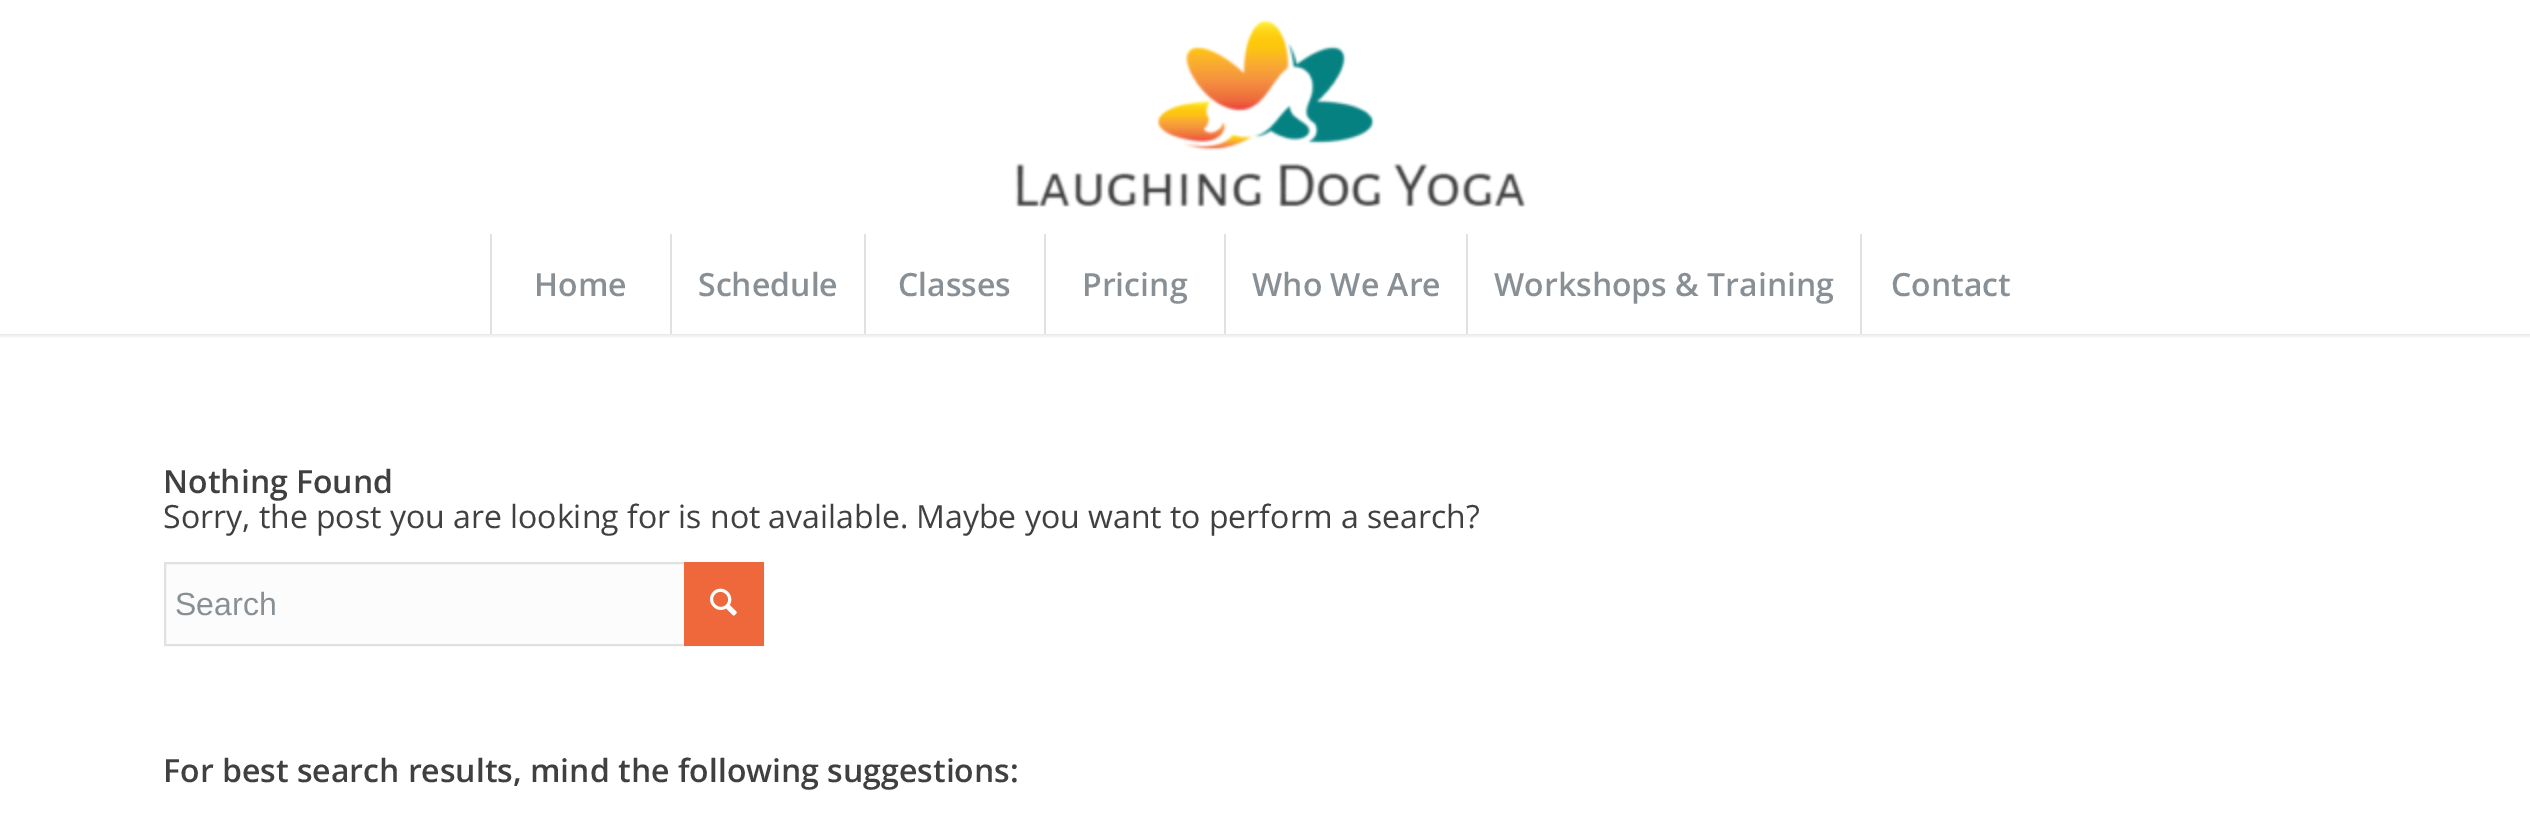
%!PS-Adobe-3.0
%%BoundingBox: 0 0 2530 829
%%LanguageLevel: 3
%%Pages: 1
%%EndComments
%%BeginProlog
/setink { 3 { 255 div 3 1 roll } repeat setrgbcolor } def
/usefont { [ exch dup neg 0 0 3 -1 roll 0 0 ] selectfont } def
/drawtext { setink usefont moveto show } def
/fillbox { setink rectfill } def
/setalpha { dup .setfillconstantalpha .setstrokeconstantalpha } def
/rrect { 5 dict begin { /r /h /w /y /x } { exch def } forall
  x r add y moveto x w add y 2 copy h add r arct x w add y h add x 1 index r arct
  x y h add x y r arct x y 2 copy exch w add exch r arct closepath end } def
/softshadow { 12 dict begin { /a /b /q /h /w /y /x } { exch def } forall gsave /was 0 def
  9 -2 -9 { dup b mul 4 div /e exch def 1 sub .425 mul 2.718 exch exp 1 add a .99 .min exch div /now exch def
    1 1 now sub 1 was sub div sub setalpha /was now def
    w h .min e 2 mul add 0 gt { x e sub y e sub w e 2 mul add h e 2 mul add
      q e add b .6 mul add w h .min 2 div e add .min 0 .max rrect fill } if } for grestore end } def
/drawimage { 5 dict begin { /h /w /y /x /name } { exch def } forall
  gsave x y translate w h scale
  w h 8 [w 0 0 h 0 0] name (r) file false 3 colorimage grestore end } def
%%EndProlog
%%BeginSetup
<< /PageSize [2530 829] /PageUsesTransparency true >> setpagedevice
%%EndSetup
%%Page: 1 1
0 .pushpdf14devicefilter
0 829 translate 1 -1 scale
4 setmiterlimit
0 0 2530 829 255 255 255 fillbox
gsave
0 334 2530 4 rectclip
0 0 0 setink
-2 -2 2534 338 0 2 0.1 softshadow
grestore
(assets/img1.rgb) 1015 19 511 188 drawimage
490 234 2 100 225 225 225 fillbox
(Home) 534 296 /OpenSans-SemiBold 32 136 144 149 drawtext
670 234 2 100 225 225 225 fillbox
(Schedule) 698 296 /OpenSans-SemiBold 32 136 144 149 drawtext
864 234 2 100 225 225 225 fillbox
(Classes) 898 296 /OpenSans-SemiBold 32 136 144 149 drawtext
1044 234 2 100 225 225 225 fillbox
(Pricing) 1082 296 /OpenSans-SemiBold 32 136 144 149 drawtext
1224 234 2 100 225 225 225 fillbox
(Who We Are) 1252 296 /OpenSans-SemiBold 32 136 144 149 drawtext
1466 234 2 100 225 225 225 fillbox
(Workshops & Training) 1494 296 /OpenSans-SemiBold 32 136 144 149 drawtext
1860 234 2 100 225 225 225 fillbox
(Contact) 1891 296 /OpenSans-SemiBold 32 136 144 149 drawtext
(Nothing Found) 163 493 /OpenSans-SemiBold 32 64 64 64 drawtext
(Sorry, the post you are looking for is not available. Maybe you want to perform a search?) 163 528 /OpenSans-Regular 32 64 64 64 drawtext
166 564 518 80 252 252 252 fillbox
225 225 225 setink
2 setlinewidth
165 563 598 82 rectstroke
(Search) 175 615 /LiberationSans-Regular 32 136 144 149 drawtext
684 562 80 84 238 104 60 fillbox
(assets/img2.rgb) 710 588 27 28 drawimage
(For best search results, mind the following suggestions:) 163 782 /OpenSans-SemiBold 32 64 64 64 drawtext
.poppdf14devicefilter showpage
%%EOF
